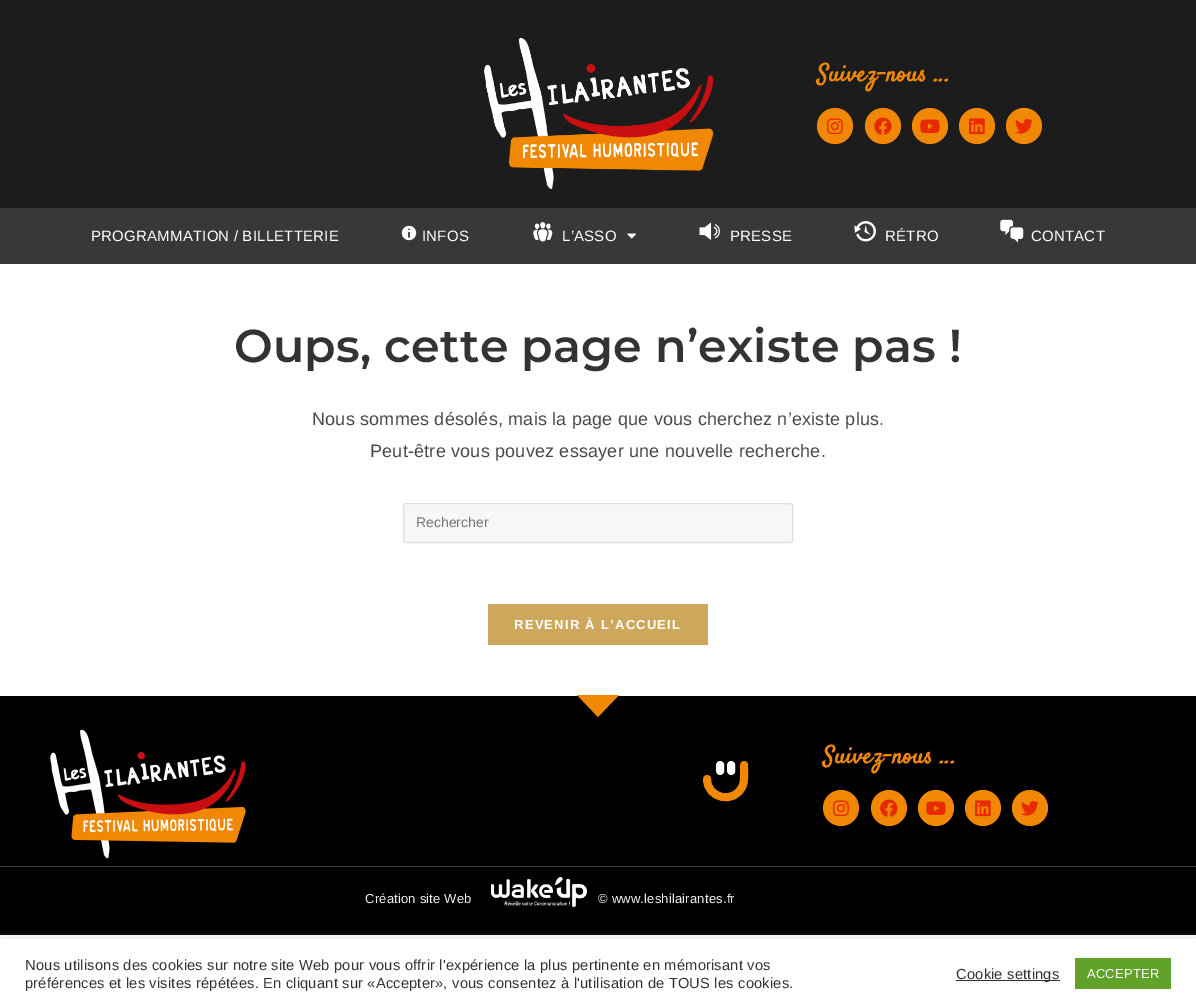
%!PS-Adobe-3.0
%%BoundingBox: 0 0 1196 1008
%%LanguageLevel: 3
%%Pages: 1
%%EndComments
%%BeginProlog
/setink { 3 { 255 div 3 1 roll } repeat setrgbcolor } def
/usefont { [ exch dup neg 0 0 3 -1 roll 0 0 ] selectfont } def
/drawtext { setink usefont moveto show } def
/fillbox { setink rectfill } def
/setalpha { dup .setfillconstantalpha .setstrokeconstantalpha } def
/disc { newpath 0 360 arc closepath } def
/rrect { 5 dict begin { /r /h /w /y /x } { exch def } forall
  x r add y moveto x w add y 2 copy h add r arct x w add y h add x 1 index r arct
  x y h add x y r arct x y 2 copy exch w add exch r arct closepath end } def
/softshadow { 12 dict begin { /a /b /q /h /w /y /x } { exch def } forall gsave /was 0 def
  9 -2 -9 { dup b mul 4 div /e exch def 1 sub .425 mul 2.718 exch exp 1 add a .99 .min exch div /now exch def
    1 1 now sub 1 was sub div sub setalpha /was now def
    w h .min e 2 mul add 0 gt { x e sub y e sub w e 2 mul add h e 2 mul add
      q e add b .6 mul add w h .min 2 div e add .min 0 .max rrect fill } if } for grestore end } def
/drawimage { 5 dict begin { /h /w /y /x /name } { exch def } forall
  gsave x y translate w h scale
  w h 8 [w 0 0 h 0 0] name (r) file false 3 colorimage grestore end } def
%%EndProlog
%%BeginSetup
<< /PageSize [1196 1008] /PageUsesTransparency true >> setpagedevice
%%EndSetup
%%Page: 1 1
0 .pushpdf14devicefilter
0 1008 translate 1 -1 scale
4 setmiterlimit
0 0 1196 1008 255 255 255 fillbox
0 0 1196 208 28 28 28 fillbox
(assets/img1.rgb) 484 37 230 152 drawimage
/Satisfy-Bold 24 usefont
241 136 5 setink
817 81 moveto 0.2 0 (Suivez-nous ...) ashow
835 126 18 disc fill
(assets/img2.rgb) 827 118 16 17 drawimage
883 126 18 disc fill
(assets/img3.rgb) 874 117 18 18 drawimage
930 126 18 disc fill
(assets/img4.rgb) 920 119 20 14 drawimage
977 126 18 disc fill
(assets/img5.rgb) 969 118 16 17 drawimage
1024 126 18 disc fill
(assets/img6.rgb) 1015 119 18 15 drawimage
0 208 1196 56 56 56 56 fillbox
/LiberationSans-Regular 15 usefont
255 255 255 setink
91 241 moveto 0.2 0 (PROGRAMMATION / BILLETTERIE) ashow
(assets/img7.rgb) 401 225 16 16 drawimage
422 241 moveto 0.2 0 (INFOS) ashow
(assets/img8.rgb) 533 222 20 20 drawimage
562 241 moveto 0.2 0 (L’ASSO) ashow
(assets/img9.rgb) 627 233 9 6 drawimage
(assets/img10.rgb) 699 222 21 18 drawimage
730 241 moveto 0.2 0 (PRESSE) ashow
(assets/img11.rgb) 854 221 22 21 drawimage
885 241 moveto 0.2 0 (RÉTRO) ashow
(assets/img12.rgb) 1000 219 24 24 drawimage
1031 241 moveto 0.2 0 (CONTACT) ashow
/Montserrat-SemiBold 46 usefont
51 51 51 setink
234 362 moveto 0.2 0 (Oups, cette page n’existe pas !) ashow
/LiberationSans-Regular 18 usefont
74 74 74 setink
312 425 moveto 0.2 0 (Nous sommes désolés, mais la page que vous cherchez n’existe plus.) ashow
370 457 moveto 0.2 0 (Peut-être vous pouvez essayer une nouvelle recherche.) ashow
247 247 247 setink
403.5 503.5 389 39 2.5 rrect gsave fill grestore
221 221 221 setink
stroke
(Rechercher) 416 527 /LiberationSans-Regular 14 117 117 117 drawtext
488 604 220 41 205 168 92 fillbox
/LiberationSans-Bold 13 usefont
255 255 255 setink
514 629 moveto 1.25 0 (REVENIR À L’ACCUEIL) ashow
0 696 1196 170 0 0 0 fillbox
241 136 5 setink
598 717 moveto 577 695 lineto 619 695 lineto closepath fill
(assets/img13.rgb) 50 729 196 130 drawimage
255 255 255 setink
7.9 setlinewidth
1 setlinecap
1 setlinejoin
731 765 moveto 731 771 lineto stroke
241 136 5 setink
744 765 moveto 744 771 745 780.5 742.5 786 curveto 735 804.5 707 799 707 779 curveto stroke
255 255 255 setink
720 765 moveto 720 771 lineto stroke
/Satisfy-Bold 24 usefont
241 136 5 setink
823 763 moveto 0.2 0 (Suivez-nous ...) ashow
841 808 18 disc fill
(assets/img2.rgb) 833 800 16 17 drawimage
889 808 18 disc fill
(assets/img3.rgb) 880 799 18 18 drawimage
936 808 18 disc fill
(assets/img4.rgb) 926 801 20 14 drawimage
983 808 18 disc fill
(assets/img5.rgb) 975 800 16 17 drawimage
1030 808 18 disc fill
(assets/img6.rgb) 1021 801 18 15 drawimage
0 867 1196 68 0 0 0 fillbox
0 866 1196 1 65 65 65 fillbox
/LiberationSans-Regular 13 usefont
240 240 240 setink
365 903 moveto 0.2 0 (Création site Web) ashow
(assets/img14.rgb) 491 877 96 30 drawimage
598 903 moveto 0.2 0 (© www.leshilairantes.fr) ashow
gsave
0 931 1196 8 rectclip
172 171 171 setink
0 938 1196 69 0 5 0.3 softshadow
grestore
/LiberationSans-Regular 14.67 usefont
51 51 51 setink
25 970 moveto 0.2 0 (Nous utilisons des cookies sur notre site Web pour vous offrir l'expérience la plus pertinente en mémorisant vos) ashow
25 988 moveto 0.2 0 (préférences et les visites répétées. En cliquant sur «Accepter», vous consentez à l'utilisation de TOUS les cookies.) ashow
956 980 104 1 51 51 51 fillbox
956 979 moveto 0.2 0 (Cookie settings) ashow
1075 958 96 31 97 162 41 fillbox
/LiberationSans-Regular 13 usefont
255 255 255 setink
1087 978 moveto 0.2 0 (ACCEPTER) ashow
.poppdf14devicefilter showpage
%%EOF
